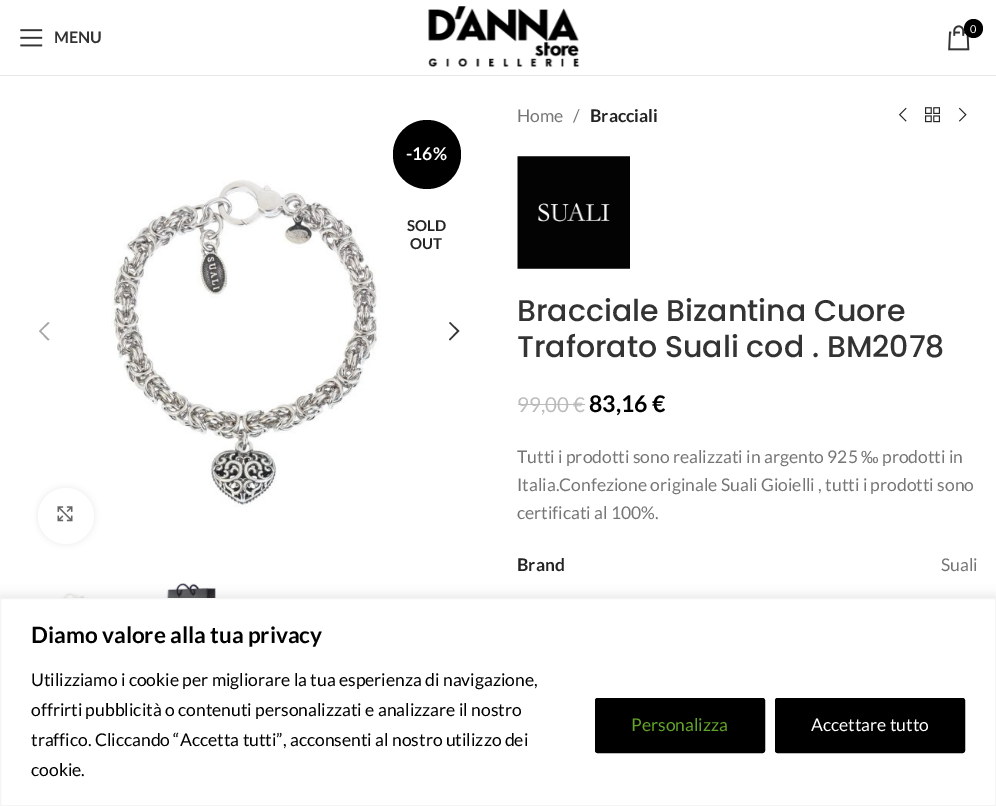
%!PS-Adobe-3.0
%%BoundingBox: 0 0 996 806
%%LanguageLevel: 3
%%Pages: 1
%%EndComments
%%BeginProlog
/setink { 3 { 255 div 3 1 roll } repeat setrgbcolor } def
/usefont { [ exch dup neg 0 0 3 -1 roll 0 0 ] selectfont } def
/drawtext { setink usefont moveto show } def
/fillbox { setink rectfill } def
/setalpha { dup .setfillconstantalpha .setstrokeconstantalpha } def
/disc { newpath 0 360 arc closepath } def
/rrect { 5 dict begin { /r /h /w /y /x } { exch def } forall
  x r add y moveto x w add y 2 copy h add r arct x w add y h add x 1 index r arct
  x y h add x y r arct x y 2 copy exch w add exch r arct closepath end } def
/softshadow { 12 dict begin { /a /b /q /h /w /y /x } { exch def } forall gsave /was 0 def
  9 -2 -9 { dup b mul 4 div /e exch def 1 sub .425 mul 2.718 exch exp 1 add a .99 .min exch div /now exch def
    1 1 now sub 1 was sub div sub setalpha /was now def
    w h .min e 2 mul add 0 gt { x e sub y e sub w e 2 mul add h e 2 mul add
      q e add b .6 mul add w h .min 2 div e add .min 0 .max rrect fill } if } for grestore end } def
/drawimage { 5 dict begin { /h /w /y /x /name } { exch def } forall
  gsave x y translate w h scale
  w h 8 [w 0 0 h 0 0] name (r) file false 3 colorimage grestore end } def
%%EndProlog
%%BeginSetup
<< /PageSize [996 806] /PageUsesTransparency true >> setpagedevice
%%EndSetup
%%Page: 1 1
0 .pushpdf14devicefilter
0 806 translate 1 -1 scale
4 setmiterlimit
0 0 996 806 255 255 255 fillbox
0 75 996 1 232 232 232 fillbox
(assets/img1.rgb) 428 6 152 61 drawimage
(assets/img2.rgb) 948 25 22 26 drawimage
0 0 0 setink
973.5 28.5 9.5 disc fill
(0) 970 33 /Lato-Regular 11 255 255 255 drawtext
(assets/img3.rgb) 20 29 23 18 drawimage
(MENU) 54 43 /Lato-Bold 16 51 51 51 drawtext
(assets/img4.rgb) 111 179 270 328 drawimage
0 0 0 setink
393 120 68 69 34 rrect fill
(-16%) 406 160 /Lato-Bold 17.5 255 255 255 drawtext
(SOLD) 407 231 /Lato-Bold 15 36 36 36 drawtext
(OUT) 410 249 /Lato-Bold 15 36 36 36 drawtext
165 165 165 setink
49.5 323 moveto 48 322 lineto 39 331 lineto 48 340.5 lineto 49.5 339.5 lineto 41 331 lineto closepath fill
51 51 51 setink
449 323 moveto 457 331 lineto 449 339.5 lineto 450 340.5 lineto 459.5 331 lineto 450 322 lineto closepath fill
0 0 0 setink
38 488 56 56 28 3 0.08 softshadow
255 255 255 setink
66 516 28 disc fill
(assets/img5.rgb) 57 506 16 16 drawimage
(assets/img6.rgb) 40 593 62 5 drawimage
(assets/img7.rgb) 161 583 55 15 drawimage
(Home) 517 122 /Lato-Regular 17.5 118 118 118 drawtext
(/) 573 122 /Lato-Regular 17.5 118 118 118 drawtext
(Bracciali) 590 122 /Lato-Bold 17.5 36 36 36 drawtext
(assets/img8.rgb) 898 107 9 15 drawimage
(assets/img9.rgb) 925 107 15 16 drawimage
(assets/img10.rgb) 958 107 9 15 drawimage
(assets/img11.rgb) 517 156 113 113 drawimage
(Bracciale Bizantina Cuore) 517 321 /Poppins-Medium 30 51 51 51 drawtext
(Traforato Suali cod . BM2078) 517 357 /Poppins-Medium 30 51 51 51 drawtext
(99,00 €) 517 412 /Lato-Regular 20.5 187 187 187 drawtext
518 404 67 1 187 187 187 fillbox
(83,16 €) 589 412 /Lato-Bold 23 0 0 0 drawtext
(Tutti i prodotti sono realizzati in argento 925) 517 463 /Lato-Regular 17.5 118 118 118 drawtext
(‰) 861 463 /LiberationSans-Regular 17.5 118 118 118 drawtext
(prodotti in) 882 463 /Lato-Regular 17.5 118 118 118 drawtext
(Italia.Confezione originale Suali Gioielli , tutti i prodotti sono) 517 491 /Lato-Regular 17.5 118 118 118 drawtext
(certificati al 100%.) 517 519 /Lato-Regular 17.5 118 118 118 drawtext
(Brand) 517 571 /Lato-Bold 17.5 36 36 36 drawtext
(Suali) 941 571 /Lato-Regular 17.5 118 118 118 drawtext
172 171 171 setink
0 596 996 209 0 6 0.3 softshadow
255 255 255 setink
0.5 598.5 moveto 995.5 598.5 lineto 995.5 805.5 lineto 0.5 805.5 lineto closepath gsave fill grestore
244 244 244 setink
stroke
(Diamo valore alla tua privacy) 31 643 /Lato-Bold 22.5 0 0 0 drawtext
(Utilizziamo i cookie per migliorare la tua esperienza di navigazione,) 31 686 /Lato-Regular 17.5 0 0 0 drawtext
(offrirti pubblicità o contenuti personalizzati e analizzare il nostro) 31 716 /Lato-Regular 17.5 0 0 0 drawtext
(traffico. Cliccando “Accetta tutti”, acconsenti al nostro utilizzo dei) 31 746 /Lato-Regular 17.5 0 0 0 drawtext
(cookie.) 31 776 /Lato-Regular 17.5 0 0 0 drawtext
596.5 699.5 167 52 1 rrect gsave fill grestore
3 setlinewidth
stroke
(Personalizza) 631 731 /Lato-Regular 17.5 98 163 41 drawtext
0 0 0 setink
776.5 699.5 187 52 1 rrect gsave fill grestore
stroke
(Accettare tutto) 811 731 /Lato-Regular 17.5 255 255 255 drawtext
.poppdf14devicefilter showpage
%%EOF
